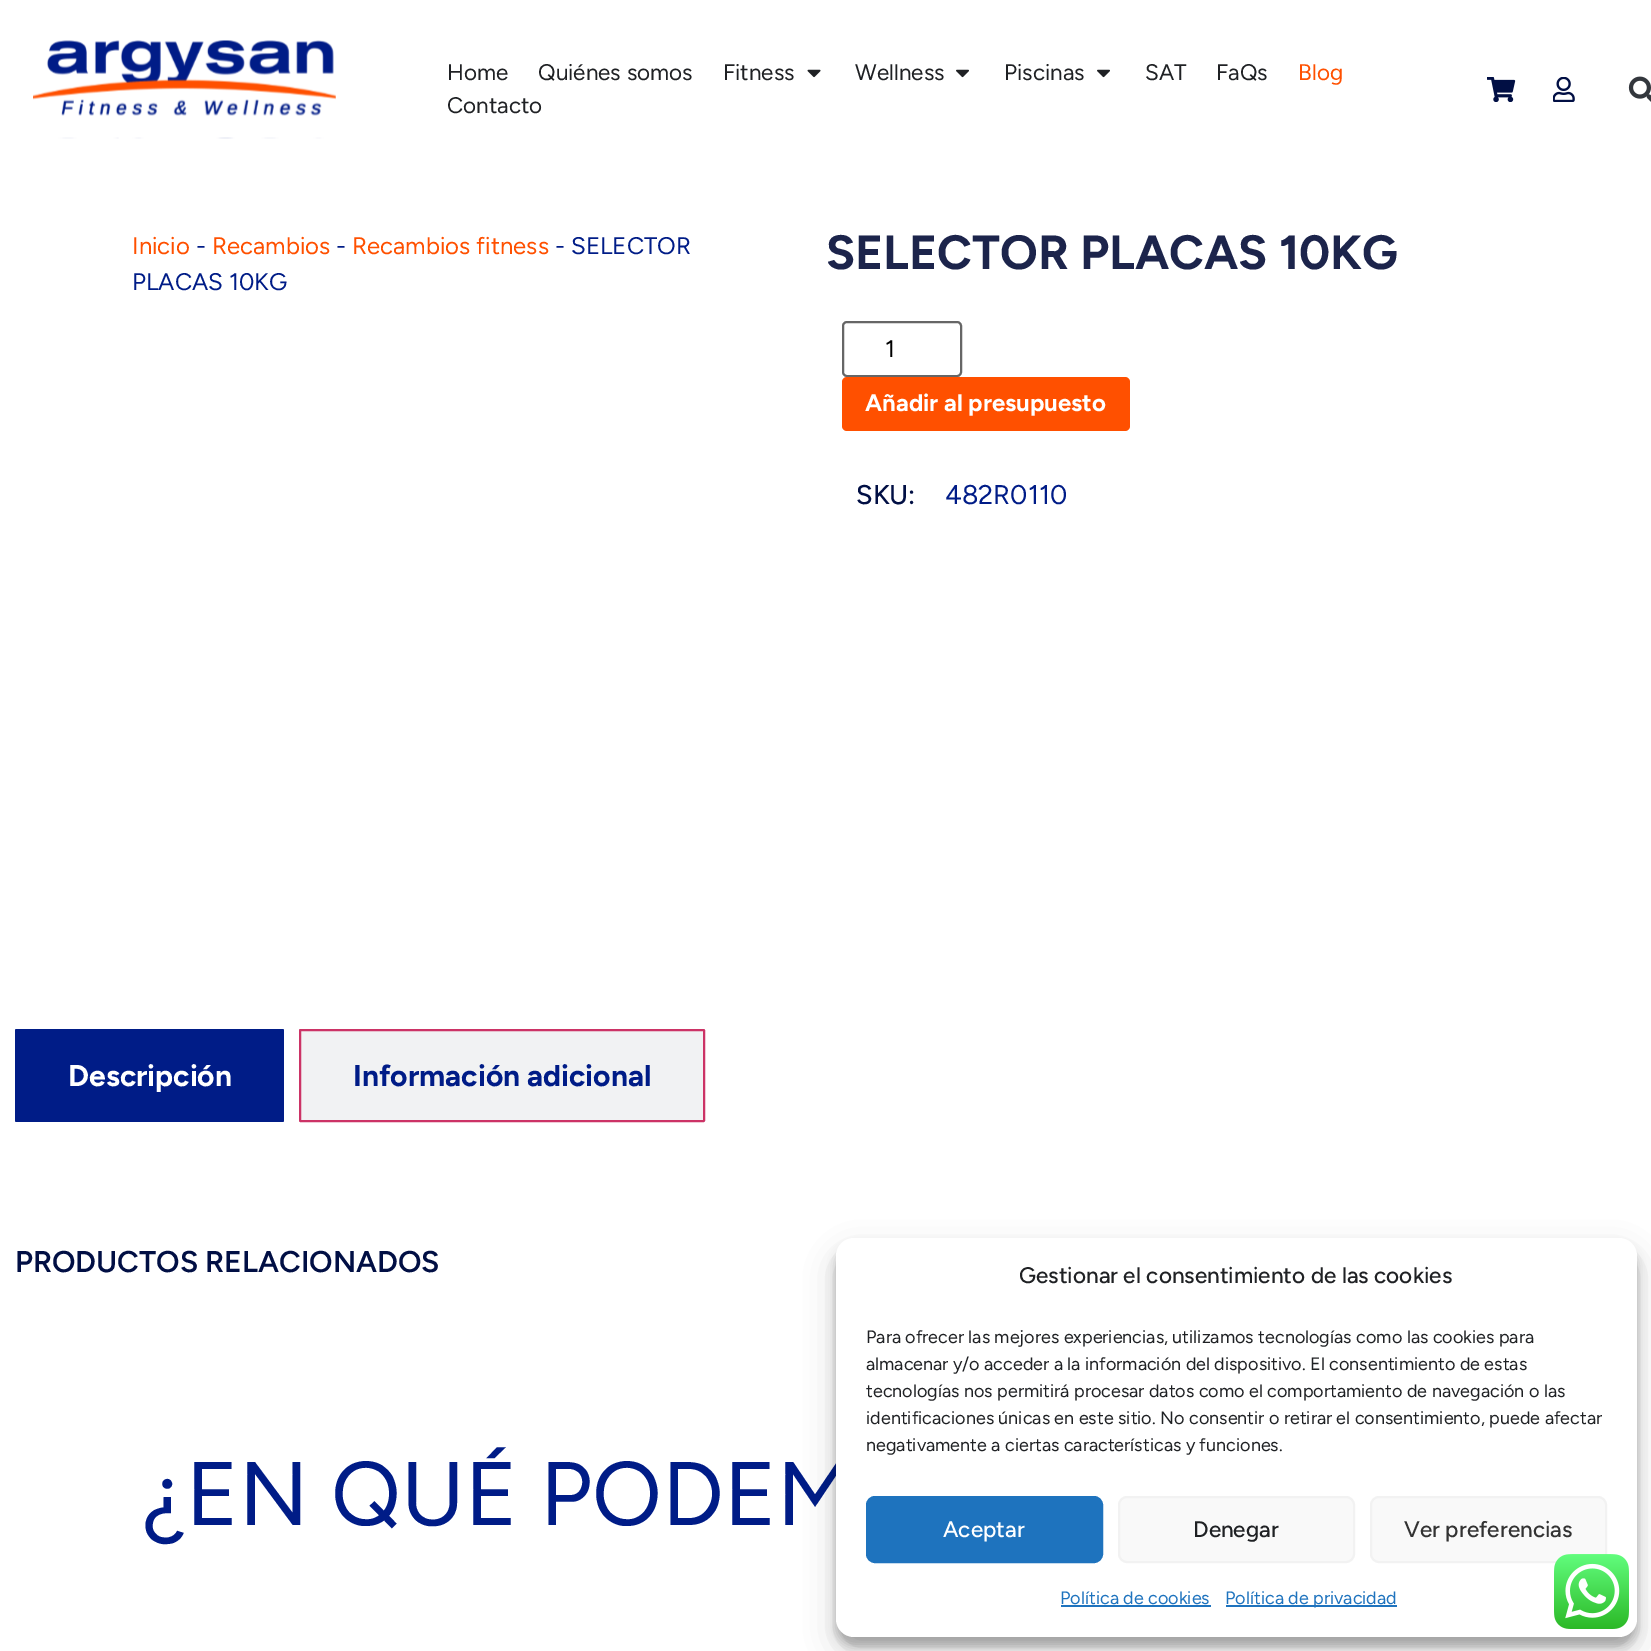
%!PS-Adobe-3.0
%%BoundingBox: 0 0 1651 1651
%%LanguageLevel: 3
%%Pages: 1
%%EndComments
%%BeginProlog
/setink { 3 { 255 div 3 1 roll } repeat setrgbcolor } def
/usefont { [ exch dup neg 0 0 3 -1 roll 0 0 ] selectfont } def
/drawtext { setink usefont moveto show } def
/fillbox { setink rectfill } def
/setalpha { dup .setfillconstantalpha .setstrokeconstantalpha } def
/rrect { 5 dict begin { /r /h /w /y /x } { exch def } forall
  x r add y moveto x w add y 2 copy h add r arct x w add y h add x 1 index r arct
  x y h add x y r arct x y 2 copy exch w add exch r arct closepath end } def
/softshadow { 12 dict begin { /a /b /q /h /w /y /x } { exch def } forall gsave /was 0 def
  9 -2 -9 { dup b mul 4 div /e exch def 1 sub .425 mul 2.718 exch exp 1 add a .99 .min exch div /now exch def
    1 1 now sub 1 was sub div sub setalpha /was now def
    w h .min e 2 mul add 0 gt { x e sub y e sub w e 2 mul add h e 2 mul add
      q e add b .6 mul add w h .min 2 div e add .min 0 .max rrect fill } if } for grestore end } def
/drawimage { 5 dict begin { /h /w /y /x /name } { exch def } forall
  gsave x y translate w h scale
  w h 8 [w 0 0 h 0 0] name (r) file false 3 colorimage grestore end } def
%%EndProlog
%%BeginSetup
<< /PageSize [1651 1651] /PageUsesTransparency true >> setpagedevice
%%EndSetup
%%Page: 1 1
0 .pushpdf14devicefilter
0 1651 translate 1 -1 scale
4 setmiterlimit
0 0 1651 1651 255 255 255 fillbox
(assets/img1.rgb) 33 40 303 99 drawimage
(Home) 447 80 /Figtree-Regular 22.5 31 33 36 drawtext
(Quiénes somos) 538 80 /Figtree-Regular 22.5 31 33 36 drawtext
(Fitness) 723 80 /Figtree-Regular 22.5 31 33 36 drawtext
(assets/img2.rgb) 807 69 14 9 drawimage
(Wellness) 855 80 /Figtree-Regular 22.5 31 33 36 drawtext
(assets/img3.rgb) 956 69 13 9 drawimage
(Piscinas) 1004 80 /Figtree-Regular 22.5 31 33 36 drawtext
(assets/img3.rgb) 1097 69 13 9 drawimage
(SAT) 1145 80 /Figtree-Regular 22.5 31 33 36 drawtext
(FaQs) 1216 80 /Figtree-Regular 22.5 31 33 36 drawtext
(Blog) 1298 80 /Figtree-Regular 22.5 255 80 0 drawtext
(Contacto) 447 113 /Figtree-Regular 22.5 31 33 36 drawtext
(assets/img4.rgb) 1487 77 29 25 drawimage
(assets/img5.rgb) 1553 77 22 25 drawimage
(assets/img6.rgb) 1628 76 23 26 drawimage
(Inicio) 132 254 /Figtree-Regular 24 255 80 0 drawtext
(-) 196 254 /Figtree-Regular 24 0 28 135 drawtext
(Recambios) 212 254 /Figtree-Regular 24 255 80 0 drawtext
(-) 336 254 /Figtree-Regular 24 0 28 135 drawtext
(Recambios fitness) 352 254 /Figtree-Regular 24 255 80 0 drawtext
(- SELECTOR) 555 254 /Figtree-Regular 24 0 28 135 drawtext
(PLACAS 10KG) 132 290 /Figtree-Regular 24 0 28 135 drawtext
(SELECTOR PLACAS 10KG) 826 269 /Figtree-Bold 48 28 36 75 drawtext
102 102 102 setink
2 setlinewidth
843 322 118 54 4 rrect stroke
(1) 885 357 /Figtree-Regular 24 0 0 0 drawtext
255 80 0 setink
842 377 288 54 5 rrect fill
(Añadir al presupuesto) 865 411 /Figtree-Bold 24 255 255 255 drawtext
(SKU:) 856 504 /Figtree-Medium 27 1 15 68 drawtext
(482R0110) 945 504 /Figtree-Regular 27 0 28 135 drawtext
15 1029 269 93 1.5 rrect fill
(Descripción) 68 1086 /Figtree-Bold 30 255 255 255 drawtext
241 242 243 setink
300 1030 404 91 0.5 rrect gsave fill grestore
204 51 102 setink
stroke
(Información adicional) 353 1086 /Figtree-Bold 30 0 28 135 drawtext
(PRODUCTOS RELACIONADOS) 15 1272 /Figtree-SemiBold 30 1 15 68 drawtext
(¿EN QUÉ PODEM) 144 1525 /Figtree-Regular 90 0 28 135 drawtext
0 0 0 setink
836 1247 801 399 18 4.5 0.23 softshadow
836 1253 801 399 18 15 0.19 softshadow
255 255 255 setink
836 1238 801 399 18 rrect fill
(Gestionar el consentimiento de las cookies) 1019 1283 /Figtree-Medium 22.5 31 33 36 drawtext
(Para ofrecer las mejores experiencias, utilizamos tecnologías como las cookies para) 866 1343 /Figtree-Regular 18 31 33 36 drawtext
(almacenar y/o acceder a la información del dispositivo. El consentimiento de estas) 866 1370 /Figtree-Regular 18 31 33 36 drawtext
(tecnologías nos permitirá procesar datos como el comportamiento de navegación o las) 866 1397 /Figtree-Regular 18 31 33 36 drawtext
(identificaciones únicas en este sitio. No consentir o retirar el consentimiento, puede afectar) 866 1424 /Figtree-Regular 18 31 33 36 drawtext
(negativamente a ciertas características y funciones.) 866 1451 /Figtree-Regular 18 31 33 36 drawtext
30 115 190 setink
867 1497 235 65 8 rrect gsave fill grestore
stroke
(Aceptar) 943 1537 /Figtree-Medium 22.5 255 255 255 drawtext
249 249 249 setink
1119 1497 235 65 8 rrect gsave fill grestore
242 242 242 setink
stroke
(Denegar) 1193 1537 /Figtree-Medium 22.5 31 33 36 drawtext
249 249 249 setink
1371 1497 235 65 8 rrect gsave fill grestore
242 242 242 setink
stroke
(Ver preferencias) 1404 1537 /Figtree-Medium 22.5 51 51 51 drawtext
(Política de cookies) 1060 1604 /Figtree-Regular 18 30 115 190 drawtext
1061 1605 150 2 30 115 190 fillbox
1226 1605 171 2 30 115 190 fillbox
(Política de privacidad) 1225 1604 /Figtree-Regular 18 30 115 190 drawtext
(assets/img7.rgb) 1554 1554 75 75 drawimage
.poppdf14devicefilter showpage
%%EOF
